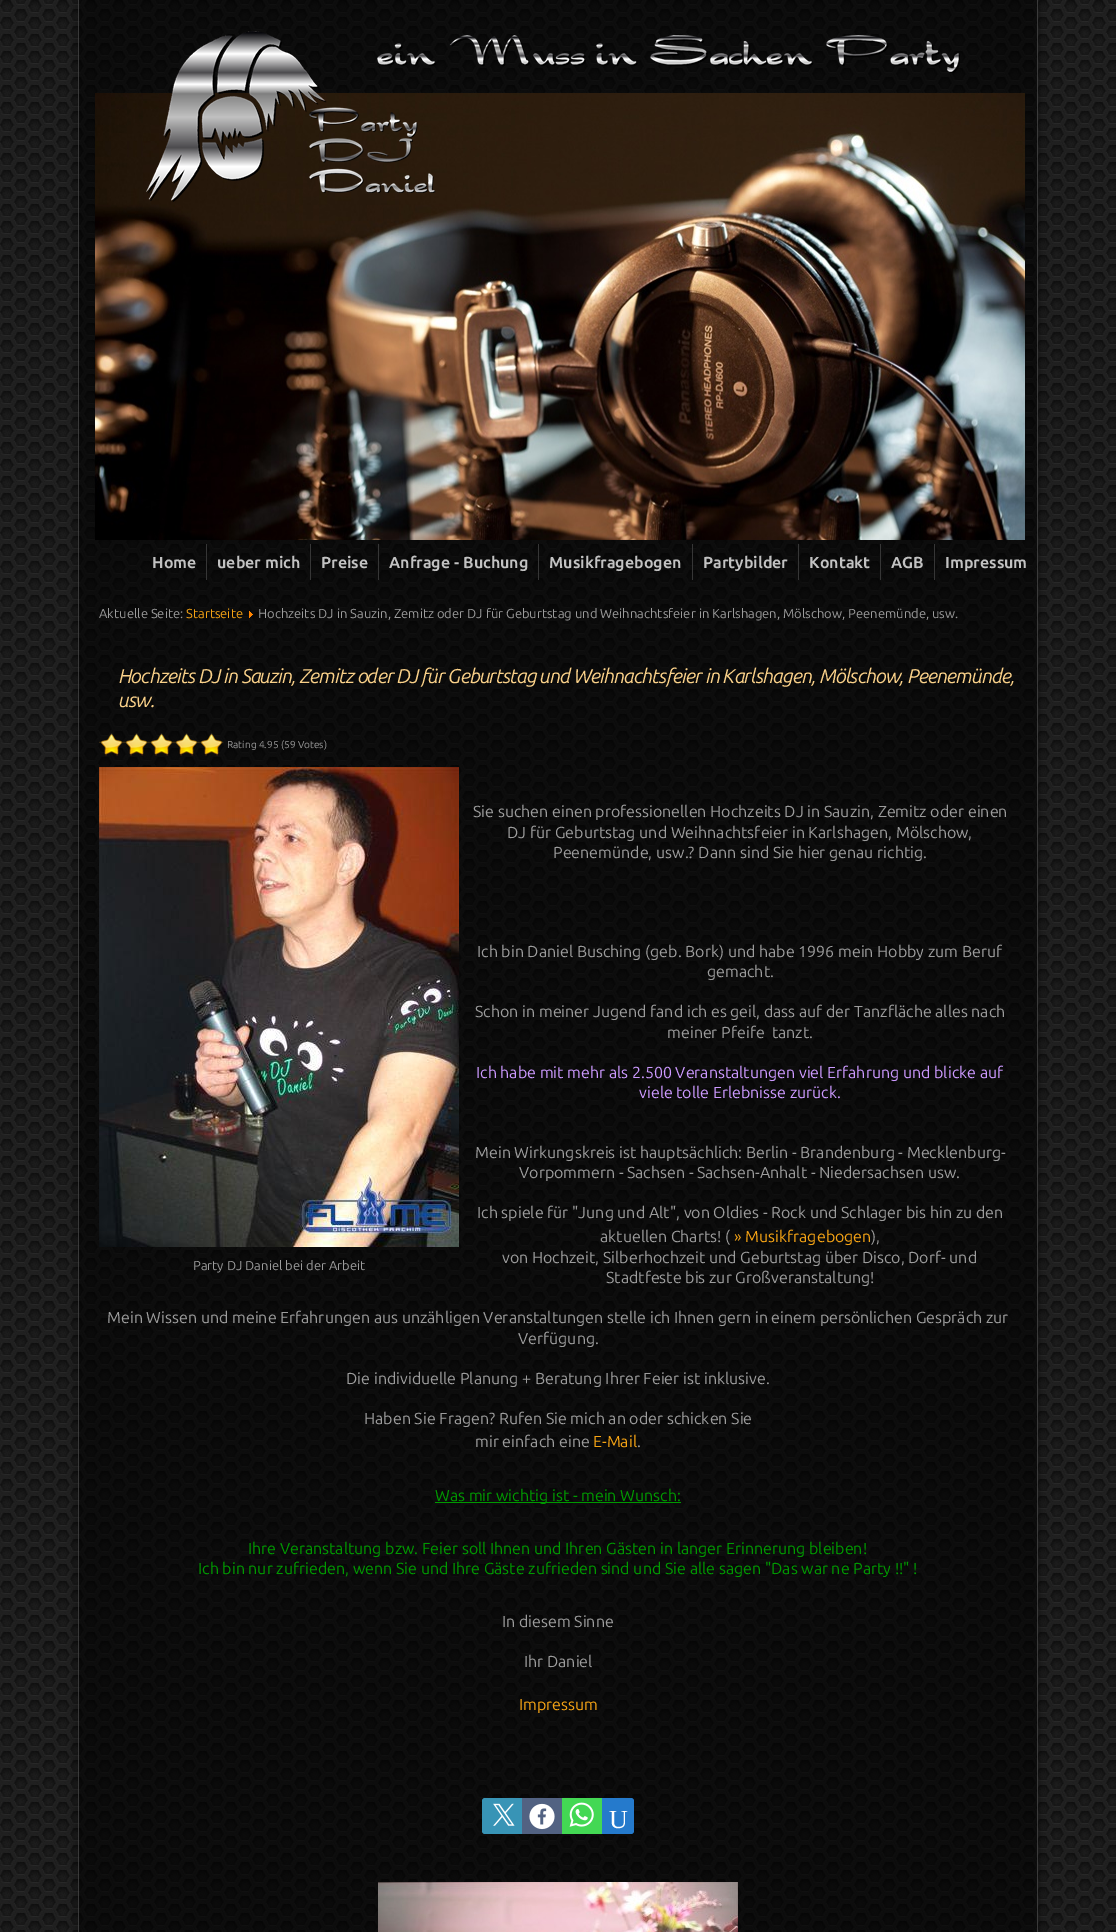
%!PS-Adobe-3.0
%%BoundingBox: 0 0 1116 1932
%%LanguageLevel: 3
%%Pages: 1
%%EndComments
%%BeginProlog
/setink { 3 { 255 div 3 1 roll } repeat setrgbcolor } def
/usefont { [ exch dup neg 0 0 3 -1 roll 0 0 ] selectfont } def
/drawtext { setink usefont moveto show } def
/fillbox { setink rectfill } def
/setalpha { dup .setfillconstantalpha .setstrokeconstantalpha } def
/rrect { 5 dict begin { /r /h /w /y /x } { exch def } forall
  x r add y moveto x w add y 2 copy h add r arct x w add y h add x 1 index r arct
  x y h add x y r arct x y 2 copy exch w add exch r arct closepath end } def
/softshadow { 12 dict begin { /a /b /q /h /w /y /x } { exch def } forall gsave /was 0 def
  9 -2 -9 { dup b mul 4 div /e exch def 1 sub .425 mul 2.718 exch exp 1 add a .99 .min exch div /now exch def
    1 1 now sub 1 was sub div sub setalpha /was now def
    w h .min e 2 mul add 0 gt { x e sub y e sub w e 2 mul add h e 2 mul add
      q e add b .6 mul add w h .min 2 div e add .min 0 .max rrect fill } if } for grestore end } def
/drawimage { 5 dict begin { /h /w /y /x /name } { exch def } forall
  gsave x y translate w h scale
  w h 8 [w 0 0 h 0 0] name (r) file false 3 colorimage grestore end } def
%%EndProlog
%%BeginSetup
<< /PageSize [1116 1932] /PageUsesTransparency true >> setpagedevice
%%EndSetup
%%Page: 1 1
0 .pushpdf14devicefilter
0 1932 translate 1 -1 scale
4 setmiterlimit
0 0 1116 1932 255 255 255 fillbox
(assets/img1.rgb) 0 0 1116 1932 drawimage
gsave
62 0 moveto 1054 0 lineto 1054 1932 lineto 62 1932 lineto closepath 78 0 moveto 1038 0 lineto 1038 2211 lineto 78 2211 lineto closepath eoclip newpath
0 0 0 setink
74 -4 968 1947 0 3.5 0.24 softshadow
grestore
0.6 setalpha
78 0 960 1932 0 0 0 fillbox
1037 0 1 1932 89 89 89 fillbox
78 0 1 1932 89 89 89 fillbox
1 setalpha
(assets/img2.rgb) 95 31 930 509 drawimage
(Home) 152 568 /Ubuntu-Bold 16 194 194 194 drawtext
206 544 1 36 54 54 54 fillbox
(ueber mich) 217 568 /Ubuntu-Bold 16 194 194 194 drawtext
310 544 1 36 54 54 54 fillbox
(Preise) 321 568 /Ubuntu-Bold 16 194 194 194 drawtext
378 544 1 36 54 54 54 fillbox
(Anfrage - Buchung) 389 568 /Ubuntu-Bold 16 194 194 194 drawtext
538 544 1 36 54 54 54 fillbox
(Musikfragebogen) 549 568 /Ubuntu-Bold 16 194 194 194 drawtext
692 544 1 36 54 54 54 fillbox
(Partybilder) 703 568 /Ubuntu-Bold 16 194 194 194 drawtext
798 544 1 36 54 54 54 fillbox
(Kontakt) 809 568 /Ubuntu-Bold 16 194 194 194 drawtext
880 544 1 36 54 54 54 fillbox
(AGB) 891 568 /Ubuntu-Bold 16 194 194 194 drawtext
934 544 1 36 54 54 54 fillbox
(Impressum) 945 568 /Ubuntu-Bold 16 194 194 194 drawtext
(Aktuelle Seite:) 99 618 /Ubuntu-Regular 13 156 156 156 drawtext
(Startseite) 186 618 /Ubuntu-Regular 13 245 163 20 drawtext
(assets/img3.rgb) 249 611 4 7 drawimage
(Hochzeits DJ in Sauzin, Zemitz oder DJ für Geburtstag und Weihnachtsfeier in Karlshagen, Mölschow, Peenemünde, usw.) 258 618 /Ubuntu-Regular 13 156 156 156 drawtext
/Ubuntu-Italic 20 usefont
250 209 137 setink
119 683 moveto -1 0 (Hochzeits DJ in Sauzin, Zemitz oder DJ für Geburtstag und Weihnachtsfeier in Karlshagen, Mölschow, Peenemünde,) ashow
119 707 moveto -1 0 (usw.) ashow
(assets/img4.rgb) 99 733 125 22 drawimage
(assets/img5.rgb) 99 733 124 23 drawimage
(Rating 4.95 \(59 Votes\)) 227 748 /Ubuntu-Regular 10.1 156 156 156 drawtext
(Sie suchen einen professionellen Hochzeits DJ in Sauzin, Zemitz oder einen) 473 817 /Ubuntu-Regular 16 156 156 156 drawtext
(DJ für Geburtstag und Weihnachtsfeier in Karlshagen, Mölschow,) 507 838 /Ubuntu-Regular 16 156 156 156 drawtext
(Peenemünde, usw.? Dann sind Sie hier genau richtig.) 553 858 /Ubuntu-Regular 16 156 156 156 drawtext
(Ich bin Daniel Busching \(geb. Bork\) und habe 1996 mein Hobby zum Beruf) 477 957 /Ubuntu-Regular 16 156 156 156 drawtext
(gemacht.) 707 977 /Ubuntu-Regular 16 156 156 156 drawtext
(Schon in meiner Jugend fand ich es geil, dass auf der Tanzfläche alles nach) 475 1017 /Ubuntu-Regular 16 156 156 156 drawtext
(meiner Pfeife  tanzt.) 667 1038 /Ubuntu-Regular 16 156 156 156 drawtext
(Ich habe mit mehr als 2.500 Veranstaltungen viel Erfahrung und blicke auf) 476 1078 /Ubuntu-Regular 16 204 153 255 drawtext
(viele tolle Erlebnisse zurück.) 639 1098 /Ubuntu-Regular 16 204 153 255 drawtext
(Mein Wirkungskreis ist hauptsächlich: Berlin - Brandenburg - Mecklenburg-) 475 1158 /Ubuntu-Regular 16 156 156 156 drawtext
(Vorpommern - Sachsen - Sachsen-Anhalt - Niedersachsen usw.) 519 1178 /Ubuntu-Regular 16 156 156 156 drawtext
(Ich spiele für "Jung und Alt", von Oldies - Rock und Schlager bis hin zu den) 477 1218 /Ubuntu-Regular 16 156 156 156 drawtext
(aktuellen Charts! \() 600 1242 /Ubuntu-Regular 16 156 156 156 drawtext
(» Musikfragebogen) 734 1242 /Ubuntu-Regular 16 245 163 20 drawtext
(\),) 871 1242 /Ubuntu-Regular 16 156 156 156 drawtext
(von Hochzeit, Silberhochzeit und Geburtstag über Disco, Dorf- und) 502 1263 /Ubuntu-Regular 16 156 156 156 drawtext
(Stadtfeste bis zur Großveranstaltung!) 606 1283 /Ubuntu-Regular 16 156 156 156 drawtext
(Mein Wissen und meine Erfahrungen aus unzähligen Veranstaltungen stelle ich Ihnen gern in einem persönlichen Gespräch zur) 107 1323 /Ubuntu-Regular 16 156 156 156 drawtext
(Verfügung.) 518 1344 /Ubuntu-Regular 16 156 156 156 drawtext
(Die individuelle Planung + Beratung Ihrer Feier ist inklusive.) 346 1384 /Ubuntu-Regular 16 156 156 156 drawtext
(Haben Sie Fragen? Rufen Sie mich an oder schicken Sie) 364 1424 /Ubuntu-Regular 16 156 156 156 drawtext
(mir einfach eine) 475 1447 /Ubuntu-Regular 16 156 156 156 drawtext
(E-Mail) 593 1447 /Ubuntu-Regular 16 245 163 20 drawtext
(.) 637 1447 /Ubuntu-Regular 16 156 156 156 drawtext
435 1502 246 1 0 153 0 fillbox
(Was mir wichtig ist - mein Wunsch:) 435 1501 /Ubuntu-Regular 16 0 153 0 drawtext
(Ihre Veranstaltung bzw. Feier soll Ihnen und Ihren Gästen in langer Erinnerung bleiben!) 248 1554 /Ubuntu-Regular 16 0 153 0 drawtext
(Ich bin nur zufrieden, wenn Sie und Ihre Gäste zufrieden sind und Sie alle sagen "Das war ne Party !!" !) 198 1574 /Ubuntu-Regular 16 0 153 0 drawtext
(In diesem Sinne) 502 1627 /Ubuntu-Regular 16 156 156 156 drawtext
(Ihr Daniel) 524 1667 /Ubuntu-Regular 16 156 156 156 drawtext
(Impressum) 519 1710 /Ubuntu-Regular 16 245 163 20 drawtext
56 148 182 setink
485 1798 moveto 522 1798 lineto 522 1834 lineto 485 1834 lineto 483.5 1834 482 1832.5 482 1831 curveto 482 1801 lineto 482 1799.5 483.5 1798 485 1798 curveto closepath fill
(assets/img6.rgb) 493 1803 22 23 drawimage
522 1798 40 36 82 98 130 fillbox
(assets/img7.rgb) 529 1803 26 27 drawimage
562 1798 40 36 67 216 84 fillbox
(assets/img8.rgb) 569 1802 25 25 drawimage
37 122 204 setink
602 1798 moveto 631 1798 lineto 632.5 1798 634 1799.5 634 1801 curveto 634 1831 lineto 634 1832.5 632.5 1834 631 1834 curveto 602 1834 lineto closepath fill
(U) 609 1828 /LiberationSerif-Regular 26 255 255 255 drawtext
(assets/img9.rgb) 99 767 360 480 drawimage
(Party DJ Daniel bei der Arbeit) 193 1270 /Ubuntu-Regular 13 156 156 156 drawtext
(assets/img10.rgb) 378 1882 360 50 drawimage
.poppdf14devicefilter showpage
%%EOF
